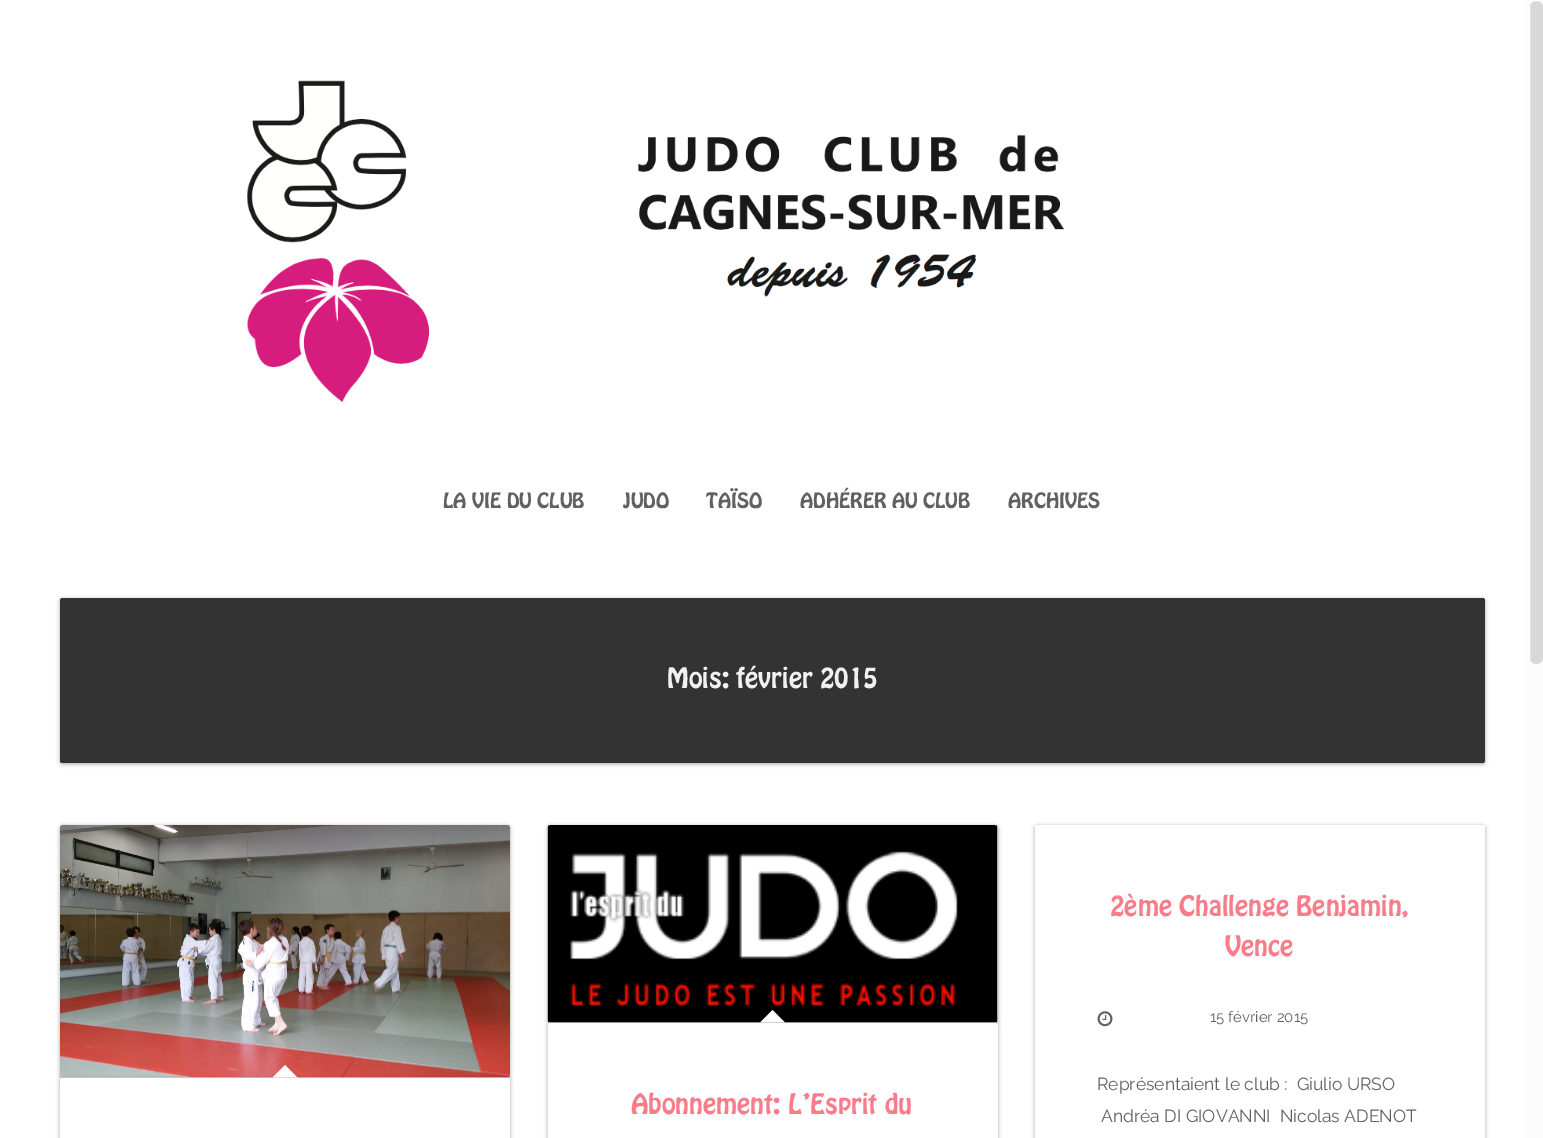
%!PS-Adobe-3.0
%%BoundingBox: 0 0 1543 1138
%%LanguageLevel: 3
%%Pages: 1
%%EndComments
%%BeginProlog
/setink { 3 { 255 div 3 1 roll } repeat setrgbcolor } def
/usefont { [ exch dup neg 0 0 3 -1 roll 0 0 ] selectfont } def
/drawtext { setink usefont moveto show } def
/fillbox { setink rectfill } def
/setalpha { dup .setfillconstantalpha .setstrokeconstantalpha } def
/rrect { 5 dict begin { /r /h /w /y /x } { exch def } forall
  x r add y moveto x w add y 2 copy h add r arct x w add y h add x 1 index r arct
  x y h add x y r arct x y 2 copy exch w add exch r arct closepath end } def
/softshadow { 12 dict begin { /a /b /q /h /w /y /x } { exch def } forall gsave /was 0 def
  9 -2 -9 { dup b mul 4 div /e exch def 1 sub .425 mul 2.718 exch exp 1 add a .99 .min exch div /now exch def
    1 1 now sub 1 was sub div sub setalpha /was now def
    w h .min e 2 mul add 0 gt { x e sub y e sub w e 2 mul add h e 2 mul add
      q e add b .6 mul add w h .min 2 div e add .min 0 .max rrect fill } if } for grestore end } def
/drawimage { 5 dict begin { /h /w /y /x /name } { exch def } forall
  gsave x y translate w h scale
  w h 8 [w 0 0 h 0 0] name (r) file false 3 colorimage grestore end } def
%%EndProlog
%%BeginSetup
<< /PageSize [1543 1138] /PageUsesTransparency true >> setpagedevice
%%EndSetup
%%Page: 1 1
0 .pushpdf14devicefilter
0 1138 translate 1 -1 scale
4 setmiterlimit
0 0 1543 1138 255 255 255 fillbox
(assets/img1.rgb) 246 80 818 323 drawimage
(LA VIE DU CLUB) 443 508 /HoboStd-Medium 18.75 97 97 97 drawtext
(JUDO) 623 508 /HoboStd-Medium 18.75 97 97 97 drawtext
(TAÏSO) 706 508 /HoboStd-Medium 18.75 97 97 97 drawtext
(ADHÉRER AU CLUB) 800 508 /HoboStd-Medium 18.75 97 97 97 drawtext
(ARCHIVES) 1008 508 /HoboStd-Medium 18.75 97 97 97 drawtext
34 25 25 setink
60 599 1425 165 2.5 2 0.4 softshadow
51 51 51 setink
60 598 1425 165 2.5 rrect fill
(Mois: février 2015) 667 688 /HoboStd-Medium 25 241 241 241 drawtext
34 25 25 setink
60 826 450 253 2.5 2 0.4 softshadow
(assets/img2.rgb) 60 825 450 253 drawimage
60 1079 450 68 2.5 2 0.4 softshadow
255 255 255 setink
297.5 1077.5 moveto 272.5 1077.5 lineto 285 1065 lineto closepath fill
60 1078 450 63 2.5 rrect fill
34 25 25 setink
548 826 450 198 2.5 2 0.4 softshadow
(assets/img3.rgb) 547 825 451 198 drawimage
548 1024 450 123 2.5 2 0.4 softshadow
255 255 255 setink
785 1022.5 moveto 760 1022.5 lineto 772.5 1010 lineto closepath fill
548 1023 450 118 2.5 rrect fill
(Abonnement: L’Esprit du) 631 1114 /HoboStd-Medium 25 249 124 138 drawtext
34 25 25 setink
1035 826 450 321 2.5 2 0.4 softshadow
255 255 255 setink
1035 825 450 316 2.5 rrect fill
(2ème Challenge Benjamin,) 1110 916 /HoboStd-Medium 25 249 124 138 drawtext
(Vence) 1225 956 /HoboStd-Medium 25 249 124 138 drawtext
(assets/img4.rgb) 1097 1011 16 16 drawimage
(15 février 2015) 1210 1022 /Raleway-Regular 15 97 97 97 drawtext
(Représentaient le club :  Giulio URSO) 1097 1090 /Raleway-Regular 17.5 97 97 97 drawtext
(Andréa DI GIOVANNI  Nicolas ADENOT) 1101 1122 /Raleway-Regular 17.5 97 97 97 drawtext
1526 0 17 1138 252 252 252 fillbox
216 216 216 setink
1529.5 0.5 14 664 5.5 rrect gsave fill grestore
255 255 255 setink
stroke
.poppdf14devicefilter showpage
%%EOF
